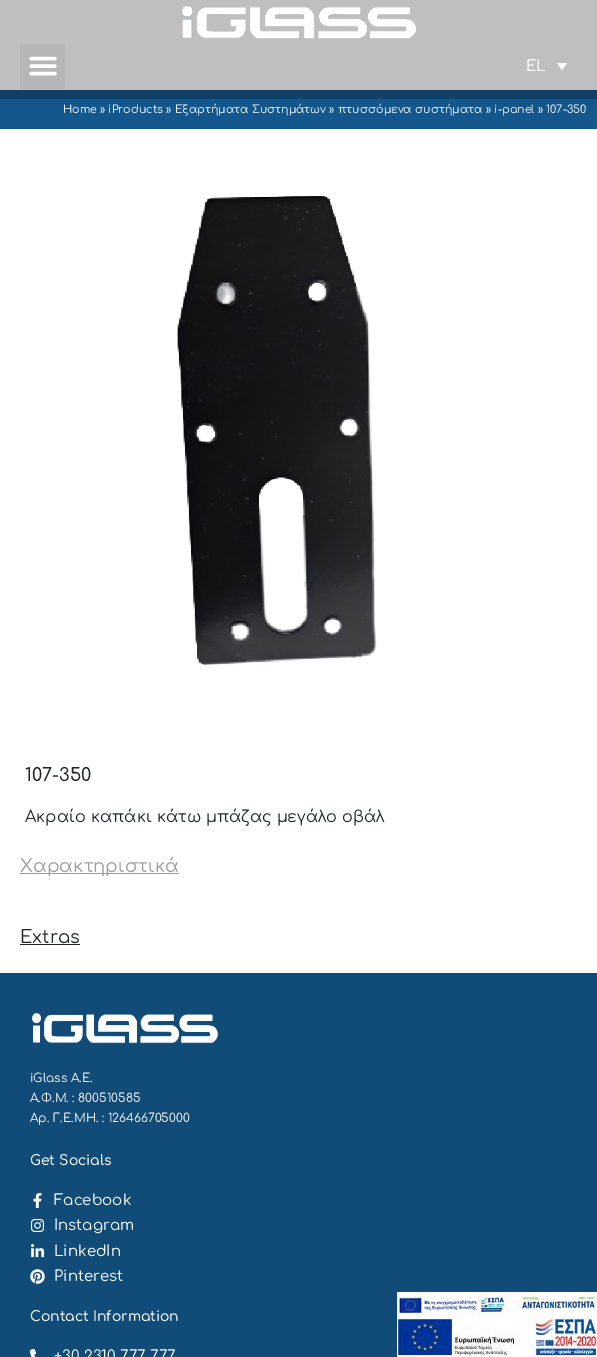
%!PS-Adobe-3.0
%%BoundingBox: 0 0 597 1357
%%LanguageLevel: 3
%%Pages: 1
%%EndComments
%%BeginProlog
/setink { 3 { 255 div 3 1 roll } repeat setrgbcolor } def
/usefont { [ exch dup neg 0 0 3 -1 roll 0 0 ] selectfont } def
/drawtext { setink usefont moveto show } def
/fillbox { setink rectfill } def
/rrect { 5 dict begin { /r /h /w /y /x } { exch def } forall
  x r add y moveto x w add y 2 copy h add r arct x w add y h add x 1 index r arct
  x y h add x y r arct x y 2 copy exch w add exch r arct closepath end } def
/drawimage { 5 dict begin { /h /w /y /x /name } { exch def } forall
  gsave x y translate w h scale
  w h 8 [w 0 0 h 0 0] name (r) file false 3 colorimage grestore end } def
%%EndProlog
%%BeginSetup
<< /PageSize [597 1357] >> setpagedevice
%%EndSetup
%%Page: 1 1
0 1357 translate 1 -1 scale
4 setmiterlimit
0 0 597 1357 255 255 255 fillbox
0 0 597 90 191 191 191 fillbox
(assets/img1.rgb) 181 5 235 34 drawimage
182 182 182 setink
20 44 45 45 3 rrect fill
(assets/img2.rgb) 29 56 28 20 drawimage
(EL) 526 71 /Comfortaa-Regular 15 255 255 255 drawtext
557 63 moveto 567 63 lineto 562 70 lineto closepath fill
0 99 597 30 19 87 140 fillbox
0 90 597 9 14 65 105 fillbox
(Home » iProducts » Εξαρτήματα Συστημάτων » πτυσσόμενα συστήματα » i-panel » 107-350) 63 113 /Comfortaa-Regular 11 255 255 255 drawtext
(assets/img3.rgb) 177 195 201 471 drawimage
(107-350) 25 781 /Comfortaa-Medium 18 33 37 41 drawtext
(Ακραίο καπάκι κάτω μπάζας μεγάλο οβάλ) 25 822 /Comfortaa-Regular 16 33 37 41 drawtext
20 873 159 1 156 156 156 fillbox
(Χαρακτηριστικά) 20 872 /Comfortaa-Regular 18 156 156 156 drawtext
(Extras) 20 943 /Comfortaa-Regular 18 33 37 41 drawtext
20 944 60 1 33 37 41 fillbox
0 973 597 384 17 75 120 fillbox
(assets/img4.rgb) 32 1013 186 31 drawimage
(iGlass Α.Ε.) 30 1082 /Comfortaa-Regular 12 255 255 255 drawtext
(Α.Φ.Μ. : 800510585) 30 1102 /Comfortaa-Regular 12 255 255 255 drawtext
(Αρ. Γ.Ε.ΜΗ. : 126466705000) 30 1122 /Comfortaa-Regular 12 255 255 255 drawtext
(Get Socials) 30 1165 /Comfortaa-Medium 14 255 255 255 drawtext
(assets/img5.rgb) 33 1193 9 15 drawimage
(Facebook) 54 1205 /Comfortaa-Regular 15 255 255 255 drawtext
(assets/img6.rgb) 31 1219 14 13 drawimage
(Instagram) 54 1230 /Comfortaa-Regular 15 255 255 255 drawtext
(assets/img7.rgb) 31 1244 14 14 drawimage
(LinkedIn) 54 1256 /Comfortaa-Regular 15 255 255 255 drawtext
(assets/img8.rgb) 30 1269 15 15 drawimage
(Pinterest) 54 1281 /Comfortaa-Regular 15 255 255 255 drawtext
(Contact Information) 30 1321 /Comfortaa-Medium 14 255 255 255 drawtext
(assets/img9.rgb) 30 1349 6 8 drawimage
(+30 2310 777 777) 54 1361 /Comfortaa-Regular 15 255 255 255 drawtext
(assets/img10.rgb) 397 1292 200 25 drawimage
(assets/img11.rgb) 397 1317 200 40 drawimage
showpage
%%EOF
